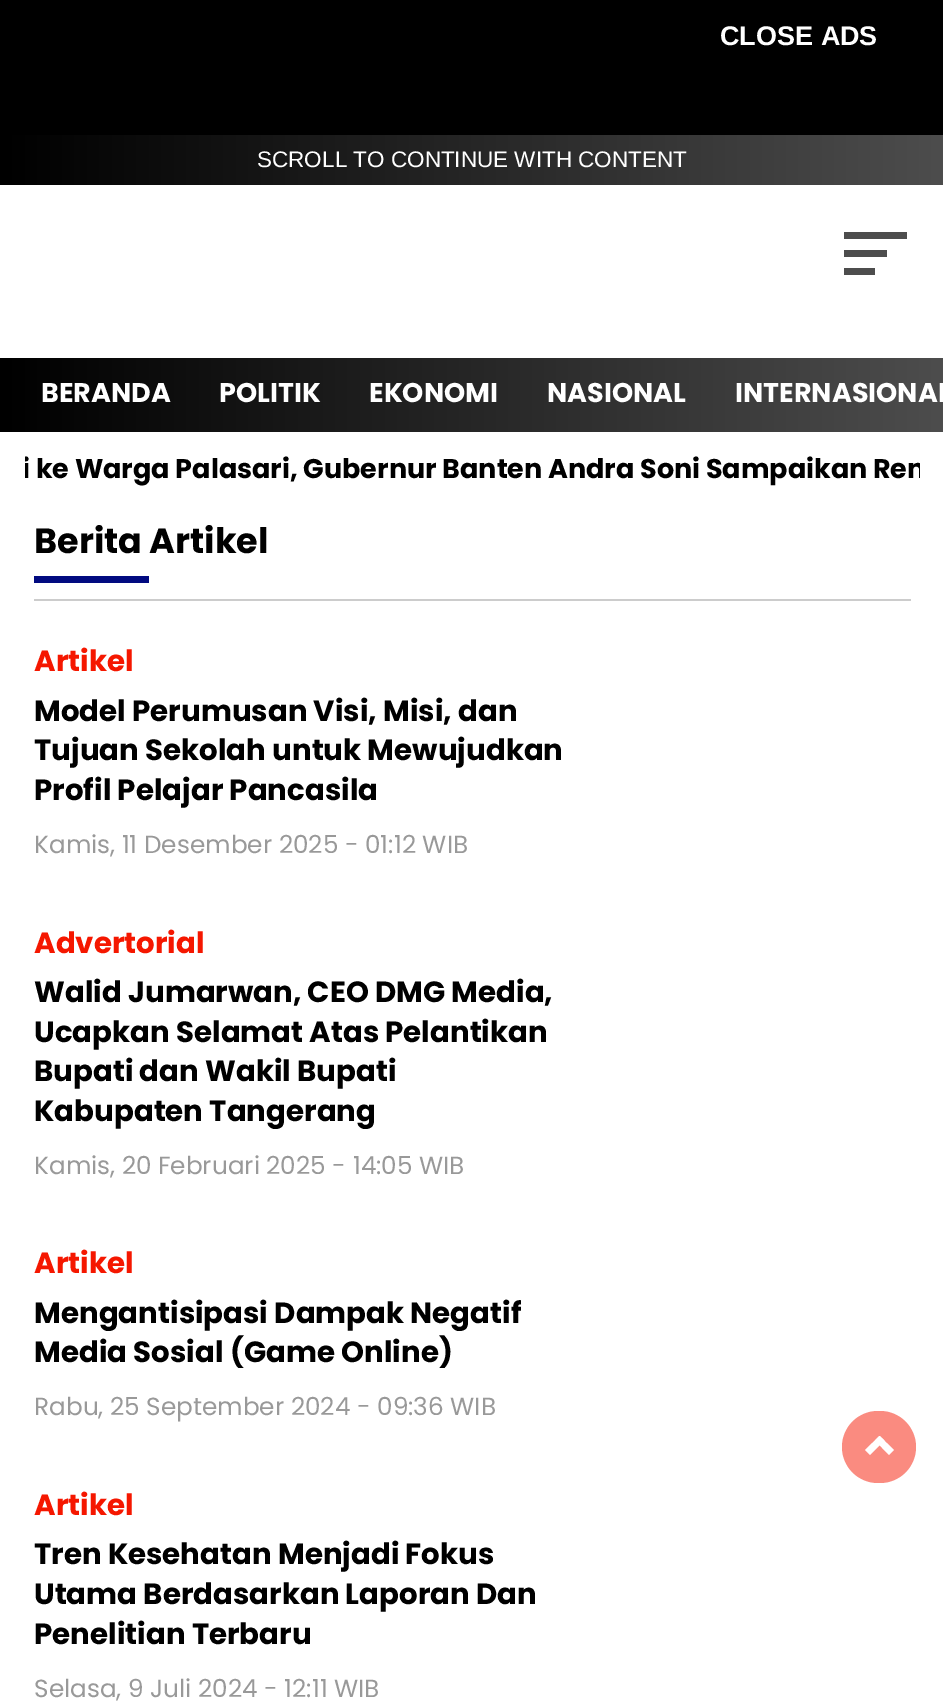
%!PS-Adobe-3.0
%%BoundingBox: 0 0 943 1706
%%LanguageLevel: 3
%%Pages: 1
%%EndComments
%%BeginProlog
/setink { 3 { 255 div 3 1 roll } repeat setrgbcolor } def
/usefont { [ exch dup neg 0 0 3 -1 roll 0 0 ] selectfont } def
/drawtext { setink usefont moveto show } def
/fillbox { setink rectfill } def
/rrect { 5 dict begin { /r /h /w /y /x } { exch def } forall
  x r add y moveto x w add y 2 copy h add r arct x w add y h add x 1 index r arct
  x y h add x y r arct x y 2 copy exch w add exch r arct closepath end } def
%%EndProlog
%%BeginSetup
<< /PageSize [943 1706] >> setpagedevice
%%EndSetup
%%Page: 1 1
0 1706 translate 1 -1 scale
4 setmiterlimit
0 0 943 1706 255 255 255 fillbox
0 0 943 135 0 0 0 fillbox
(CLOSE ADS) 720 45 /LiberationSans-Bold 27 255 255 255 drawtext
gsave 0 135 moveto 943 135 lineto 943 185 lineto 0 185 lineto closepath clip newpath
<< /ShadingType 2 /ColorSpace /DeviceRGB /Coords [0 160 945 160] /Extend [true true] /Function << /FunctionType 2 /Domain [0 1] /C0 [0 0 0] /C1 [0.302 0.302 0.302] /N 1 >> >> shfill grestore
(SCROLL TO CONTINUE WITH CONTENT) 257 167 /LiberationSans-Regular 22.5 255 255 255 drawtext
844 232 63 7 77 77 77 fillbox
844 250 43 7 77 77 77 fillbox
844 268 31 7 77 77 77 fillbox
gsave 0 358 moveto 943 358 lineto 943 432 lineto 0 432 lineto closepath clip newpath
<< /ShadingType 2 /ColorSpace /DeviceRGB /Coords [0 395 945 395] /Extend [true true] /Function << /FunctionType 2 /Domain [0 1] /C0 [0 0 0] /C1 [0.302 0.302 0.302] /N 1 >> >> shfill grestore
(BERANDA) 41 402 /Poppins-Bold 27 255 255 255 drawtext
(POLITIK) 219 402 /Poppins-Bold 27 255 255 255 drawtext
(EKONOMI) 369 402 /Poppins-Bold 27 255 255 255 drawtext
(NASIONAL) 547 402 /Poppins-Bold 27 255 255 255 drawtext
(INTERNASIONAL) 735 402 /Poppins-Bold 27 255 255 255 drawtext
gsave
25 432 895 68 rectclip
(i ke Warga Palasari, Gubernur Banten Andra Soni Sampaikan Ren) 22 478 /Poppins-Bold 27 0 0 0 drawtext
grestore
34 599 877 2 204 204 204 fillbox
(Berita Artikel) 34 553 /Poppins-Bold 35 0 0 0 drawtext
34 576 115 7 1 10 128 fillbox
(Artikel) 34 671 /Poppins-Bold 29.25 245 23 0 drawtext
(Model Perumusan Visi, Misi, dan) 34 721 /Poppins-Bold 29.25 0 0 0 drawtext
(Tujuan Sekolah untuk Mewujudkan) 34 760 /Poppins-Bold 29.25 0 0 0 drawtext
(Profil Pelajar Pancasila) 34 800 /Poppins-Bold 29.25 0 0 0 drawtext
(Kamis, 11 Desember 2025 - 01:12 WIB) 34 853 /Poppins-Regular 24.75 153 153 153 drawtext
(Advertorial) 34 953 /Poppins-Bold 29.25 245 23 0 drawtext
(Walid Jumarwan, CEO DMG Media,) 34 1002 /Poppins-Bold 29.25 0 0 0 drawtext
(Ucapkan Selamat Atas Pelantikan) 34 1042 /Poppins-Bold 29.25 0 0 0 drawtext
(Bupati dan Wakil Bupati) 34 1081 /Poppins-Bold 29.25 0 0 0 drawtext
(Kabupaten Tangerang) 34 1121 /Poppins-Bold 29.25 0 0 0 drawtext
(Kamis, 20 Februari 2025 - 14:05 WIB) 34 1174 /Poppins-Regular 24.75 153 153 153 drawtext
(Artikel) 34 1273 /Poppins-Bold 29.25 245 23 0 drawtext
(Mengantisipasi Dampak Negatif) 34 1323 /Poppins-Bold 29.25 0 0 0 drawtext
(Media Sosial \(Game Online\)) 34 1362 /Poppins-Bold 29.25 0 0 0 drawtext
(Rabu, 25 September 2024 - 09:36 WIB) 34 1415 /Poppins-Regular 24.75 153 153 153 drawtext
(Artikel) 34 1515 /Poppins-Bold 29.25 245 23 0 drawtext
(Tren Kesehatan Menjadi Fokus) 34 1564 /Poppins-Bold 29.25 0 0 0 drawtext
(Utama Berdasarkan Laporan Dan) 34 1604 /Poppins-Bold 29.25 0 0 0 drawtext
(Penelitian Terbaru) 34 1644 /Poppins-Bold 29.25 0 0 0 drawtext
(Selasa, 9 Juli 2024 - 12:11 WIB) 34 1697 /Poppins-Regular 24.75 153 153 153 drawtext
250 139 128 setink
842 1411 74 72 36 rrect fill
255 255 255 setink
870 1455 moveto 865 1450 lineto 879.5 1436 lineto 884.5 1440.5 lineto closepath fill
889 1455 moveto 875 1440.5 lineto 879.5 1436 lineto 894 1450 lineto closepath fill
showpage
%%EOF
